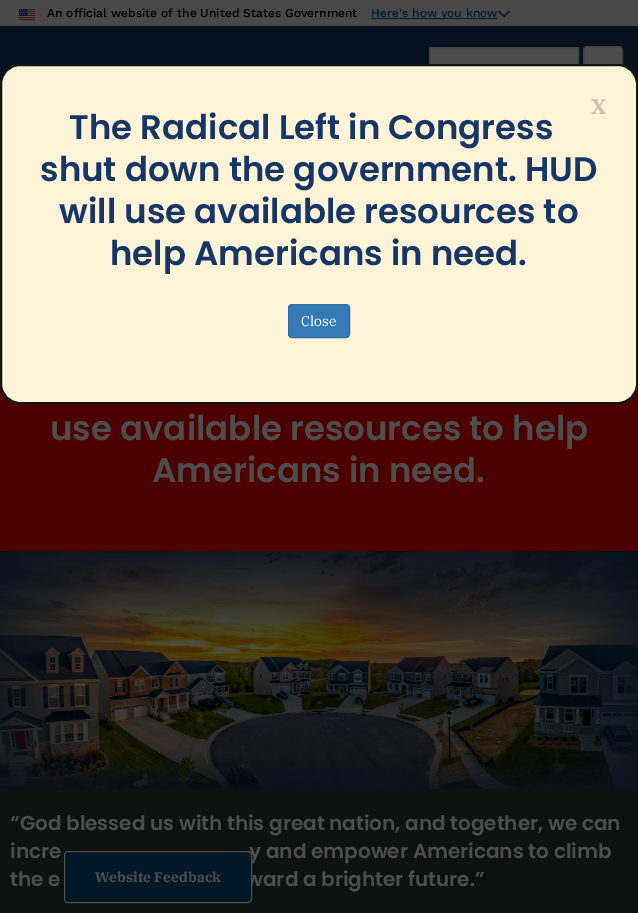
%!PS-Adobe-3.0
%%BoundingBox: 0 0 638 913
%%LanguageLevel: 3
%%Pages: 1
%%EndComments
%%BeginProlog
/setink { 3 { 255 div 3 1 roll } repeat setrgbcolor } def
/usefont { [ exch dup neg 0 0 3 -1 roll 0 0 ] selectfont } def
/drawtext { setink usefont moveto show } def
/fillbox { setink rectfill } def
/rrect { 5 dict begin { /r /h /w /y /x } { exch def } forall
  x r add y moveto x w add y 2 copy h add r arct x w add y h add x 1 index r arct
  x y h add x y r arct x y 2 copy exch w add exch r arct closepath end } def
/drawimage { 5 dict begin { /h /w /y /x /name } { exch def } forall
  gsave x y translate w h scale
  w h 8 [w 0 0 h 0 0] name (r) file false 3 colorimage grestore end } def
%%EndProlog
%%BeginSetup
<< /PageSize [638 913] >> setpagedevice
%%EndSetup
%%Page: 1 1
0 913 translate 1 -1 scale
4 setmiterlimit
0 0 638 913 7 16 31 fillbox
0 0 638 26 72 72 72 fillbox
(assets/img1.rgb) 19 9 16 11 drawimage
(An official website of the United States Government) 47 17 /WorkSans-Medium 12 0 0 0 drawtext
371 18 127 1 0 28 57 fillbox
(Here’s how you know) 371 17 /WorkSans-Medium 12 0 28 57 drawtext
(assets/img2.rgb) 498 10 12 7 drawimage
430 48 148 16 77 77 77 fillbox
61 61 61 setink
429.5 47.5 149 33 rectstroke
77 77 77 setink
583.5 46.5 39 33 3.5 rrect gsave fill grestore
61 61 61 setink
stroke
0 384 638 167 77 0 0 fillbox
255 243 215 setink
1 65 636 338 19 rrect gsave fill grestore
21 21 21 setink
2 setlinewidth
stroke
(X) 591 114 /IBMPlexSerif-Bold 21 204 194 172 drawtext
(The Radical Left in Congress) 69 139 /Poppins-SemiBold 34 22 54 103 drawtext
(shut down the government. HUD) 40 181 /Poppins-SemiBold 34 22 54 103 drawtext
(will use available resources to) 59 223 /Poppins-SemiBold 34 22 54 103 drawtext
(help Americans in need.) 110 265 /Poppins-SemiBold 34 22 54 103 drawtext
51 122 183 setink
288.5 304.5 61 33 3.5 rrect gsave fill grestore
46 109 164 setink
1 setlinewidth
stroke
(Close) 301 326 /IBMPlexSerif-Regular 14 255 255 255 drawtext
(use available resources to help) 50 440 /Poppins-SemiBold 34 77 77 77 drawtext
(Americans in need.) 152 482 /Poppins-SemiBold 34 77 77 77 drawtext
(assets/img3.rgb) 0 551 638 238 drawimage
0 789 638 124 15 17 16 fillbox
(“God blessed us with this great nation, and together, we can) 10 830 /Poppins-SemiBold 20 77 77 77 drawtext
(incre) 10 858 /Poppins-SemiBold 20 77 77 77 drawtext
(y and empower Americans to climb) 249 858 /Poppins-SemiBold 20 77 77 77 drawtext
(the e) 10 886 /Poppins-SemiBold 20 77 77 77 drawtext
(ward a brighter future.”) 246 886 /Poppins-SemiBold 20 77 77 77 drawtext
3 23 39 setink
64.5 851.5 187 51 3.5 rrect gsave fill grestore
77 77 77 setink
stroke
(Website Feedback) 95 882 /IBMPlexSerif-Bold 14 77 77 77 drawtext
showpage
%%EOF
